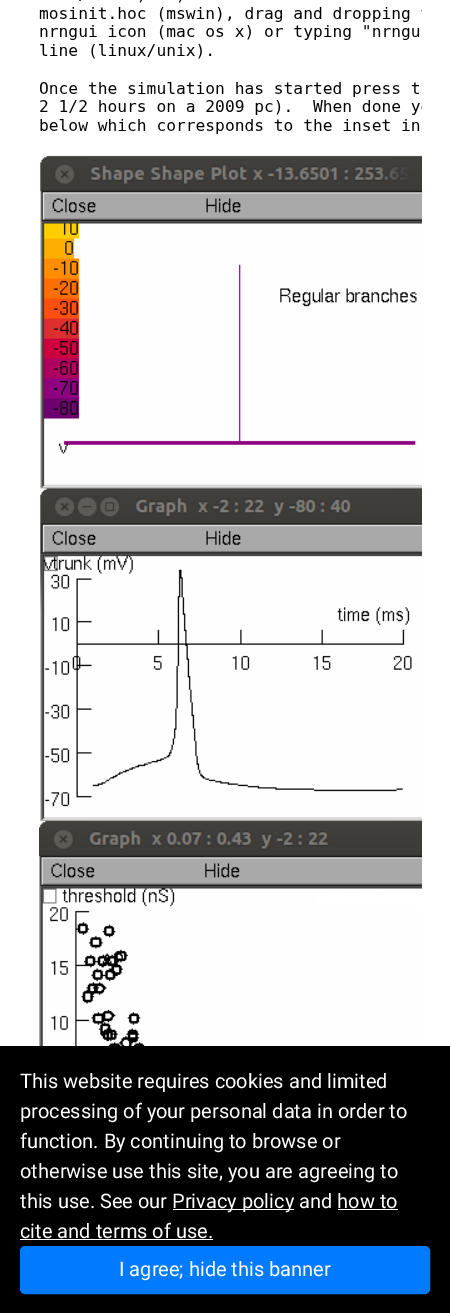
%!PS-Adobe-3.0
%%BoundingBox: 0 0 450 1313
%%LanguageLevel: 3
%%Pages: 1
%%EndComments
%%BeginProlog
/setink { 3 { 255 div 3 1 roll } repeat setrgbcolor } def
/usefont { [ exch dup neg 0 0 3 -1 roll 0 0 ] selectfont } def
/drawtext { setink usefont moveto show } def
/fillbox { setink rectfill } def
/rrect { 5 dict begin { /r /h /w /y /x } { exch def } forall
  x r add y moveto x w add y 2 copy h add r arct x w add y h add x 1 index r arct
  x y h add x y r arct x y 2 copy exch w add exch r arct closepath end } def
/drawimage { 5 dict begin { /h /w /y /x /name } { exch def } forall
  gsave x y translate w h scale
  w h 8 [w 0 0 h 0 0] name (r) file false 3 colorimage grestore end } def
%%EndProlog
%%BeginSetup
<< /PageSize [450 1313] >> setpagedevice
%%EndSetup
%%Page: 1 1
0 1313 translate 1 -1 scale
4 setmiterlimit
0 0 450 1313 255 255 255 fillbox
(assets/img1.rgb) 39 0 383 1046 drawimage
0 1046 450 267 0 0 0 fillbox
(This website requires cookies and limited) 20 1088 /Roboto-Regular 20 255 255 255 drawtext
(processing of your personal data in order to) 20 1118 /Roboto-Regular 20 255 255 255 drawtext
(function. By continuing to browse or) 20 1148 /Roboto-Regular 20 255 255 255 drawtext
(otherwise use this site, you are agreeing to) 20 1178 /Roboto-Regular 20 255 255 255 drawtext
(this use. See our) 20 1208 /Roboto-Regular 20 255 255 255 drawtext
173 1209 121 1 255 255 255 fillbox
(Privacy policy and how to) 172 1208 /Roboto-Regular 20 255 255 255 drawtext
(cite and terms of use.) 20 1238 /Roboto-Regular 20 255 255 255 drawtext
338 1209 60 1 255 255 255 fillbox
20 1239 193 1 255 255 255 fillbox
0 123 255 setink
20.5 1246.5 409 47 4.5 rrect gsave fill grestore
stroke
(I agree; hide this banner) 119 1276 /Roboto-Regular 20 255 255 255 drawtext
showpage
%%EOF
